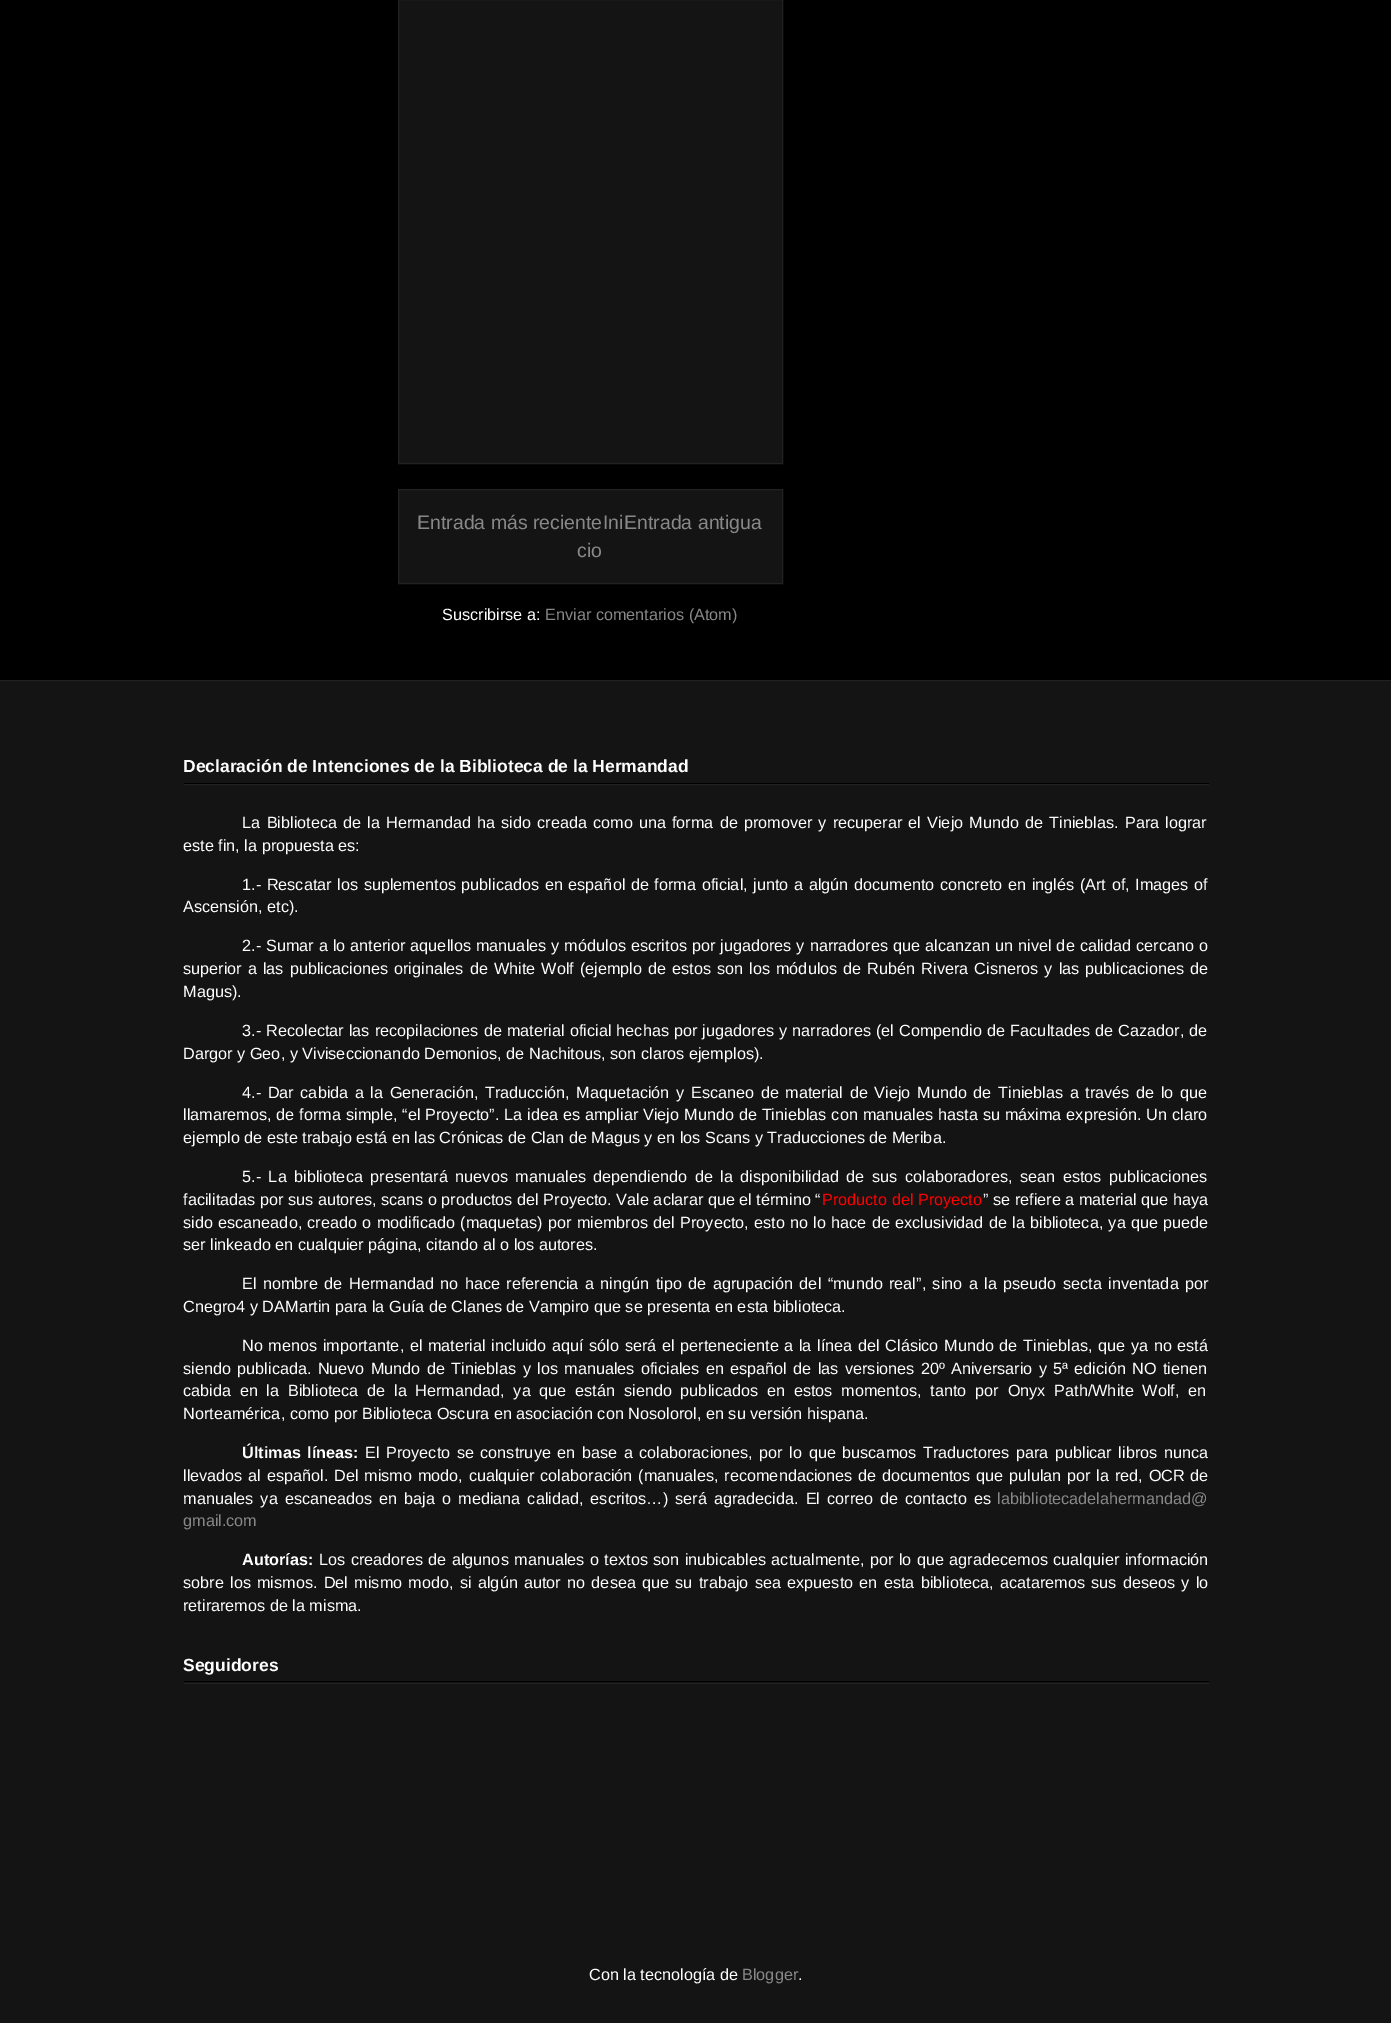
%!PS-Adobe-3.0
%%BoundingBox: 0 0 1391 2023
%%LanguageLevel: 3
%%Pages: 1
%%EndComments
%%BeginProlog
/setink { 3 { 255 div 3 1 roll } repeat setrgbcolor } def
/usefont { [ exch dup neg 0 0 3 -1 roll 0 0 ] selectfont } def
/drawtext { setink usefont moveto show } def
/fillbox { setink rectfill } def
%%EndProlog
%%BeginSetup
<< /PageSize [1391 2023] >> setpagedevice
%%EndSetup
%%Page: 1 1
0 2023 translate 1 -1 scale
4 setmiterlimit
0 0 1391 2023 0 0 0 fillbox
20 20 20 setink
398.5 -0.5 moveto 782.5 -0.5 lineto 782.5 463.5 lineto 398.5 463.5 lineto closepath gsave fill grestore
34 34 34 setink
stroke
20 20 20 setink
398.5 489.5 moveto 782.5 489.5 lineto 782.5 583.5 lineto 398.5 583.5 lineto closepath gsave fill grestore
34 34 34 setink
stroke
(Entrada más reciente) 417 529 /LiberationSans-Regular 19.5 136 136 136 drawtext
(Ini) 603 529 /LiberationSans-Regular 19.5 136 136 136 drawtext
(Entrada antigua) 624 529 /LiberationSans-Regular 19.5 136 136 136 drawtext
(cio) 577 557 /LiberationSans-Regular 19.5 136 136 136 drawtext
(Suscribirse a:) 442 620 /LiberationSans-Regular 16.25 255 255 255 drawtext
(Enviar comentarios \(Atom\)) 545 620 /LiberationSans-Regular 16.25 136 136 136 drawtext
0 681 1391 1342 20 20 20 fillbox
0 680 1391 1 34 34 34 fillbox
184 783 1025 1 0 0 0 fillbox
(Declaración de Intenciones de la Biblioteca de la Hermandad) 183 772 /LiberationSans-Bold 17.5 255 255 255 drawtext
184 784 1025 1 34 34 34 fillbox
/LiberationSans-Regular 16.25 usefont
255 255 255 setink
242 828 moveto 2 0 32 (La Biblioteca) widthshow
343 828 moveto 1.6 0 32 (de la Hermandad ha sido creada como una forma de promover y recuperar el Viejo Mundo de Tinieblas. Para lograr) widthshow
(este fin, la propuesta es:) 183 851 /LiberationSans-Regular 16.25 255 255 255 drawtext
242 890 moveto 1.1 0 32 (1.- Rescatar los suplementos publicados en español de forma oficial, junto a algún documento concreto en inglés \(Art of, Images of) widthshow
(Ascensión, etc\).) 183 912 /LiberationSans-Regular 16.25 255 255 255 drawtext
242 951 moveto 0.45 0 32 (2.- Sumar a lo anterior aquellos manuales y módulos escritos por jugadores y narradores que alcanzan un nivel de calidad cercano o) widthshow
183 974 moveto 1.5 0 32 (superior a las publicaciones originales de White Wolf \(ejemplo de estos son los módulos de Rubén Rivera Cisneros y las publicaciones de) widthshow
(Magus\).) 183 997 /LiberationSans-Regular 16.25 255 255 255 drawtext
242 1036 moveto 0.6 0 32 (3.- Recolectar las recopilaciones de material oficial hechas por jugadores y narradores \(el Compendio de Facultades de Cazador, de) widthshow
(Dargor y Geo, y Viviseccionando Demonios, de Nachitous, son claros ejemplos\).) 183 1059 /LiberationSans-Regular 16.25 255 255 255 drawtext
242 1098 moveto 2.1 0 32 (4.- Dar cabida a la Generación, Traducción, Maquetación y Escaneo de material de Viejo Mundo de Tinieblas a través de lo que) widthshow
183 1120 moveto 0.4 0 32 (llamaremos, de forma simple, “el Proyecto”. La idea es ampliar Viejo Mundo de Tinieblas con manuales hasta su máxima expresión. Un claro) widthshow
(ejemplo de este trabajo está en las Crónicas de Clan de Magus y en los Scans y Traducciones de Meriba.) 183 1143 /LiberationSans-Regular 16.25 255 255 255 drawtext
242 1182 moveto 3 0 32 (5.- La biblioteca presentará nuevos manuales dependiendo de la disponibilidad de sus colaboradores, sean estos publicaciones) widthshow
(facilitadas por sus autores, scans o productos del Proyecto. Vale aclarar que el término “) 183 1205 /LiberationSans-Regular 16.25 255 255 255 drawtext
(Producto del Proyecto) 822 1205 /LiberationSans-Regular 16.25 255 0 0 drawtext
(” se refiere a material que haya) 983 1205 /LiberationSans-Regular 16.25 255 255 255 drawtext
183 1228 moveto 0.75 0 32 (sido escaneado, creado o modificado \(maquetas\) por miembros del Proyecto, esto no lo hace de exclusividad de la biblioteca, ya que puede) widthshow
(ser linkeado en cualquier página, citando al o los autores.) 183 1250 /LiberationSans-Regular 16.25 255 255 255 drawtext
242 1289 moveto 1.9 0 32 (El nombre de Hermandad no hace referencia a ningún tipo de agrupación del “mundo real”, sino a la pseudo secta inventada por) widthshow
(Cnegro4 y DAMartin para la Guía de Clanes de Vampiro que se presenta en esta biblioteca.) 183 1312 /LiberationSans-Regular 16.25 255 255 255 drawtext
242 1351 moveto 1.1 0 32 (No menos importante, el material incluido aquí sólo será el perteneciente a la línea del Clásico Mundo de Tinieblas, que ya no está) widthshow
183 1374 moveto 1.8 0 32 (siendo publicada. Nuevo Mundo de Tinieblas y los manuales oficiales en español de las versiones 20º Aniversario y 5ª edición NO tienen) widthshow
183 1396 moveto 4.25 0 32 (cabida en la Biblioteca de la Hermandad, ya que están siendo publicados en estos momentos, tanto por Onyx Path/White Wolf, en) widthshow
(Norteamérica, como por Biblioteca Oscura en asociación con Nosolorol, en su versión hispana.) 183 1419 /LiberationSans-Regular 16.25 255 255 255 drawtext
/LiberationSans-Bold 16.25 usefont
242 1458 moveto 2 0 32 (Últimas líneas:) widthshow
/LiberationSans-Regular 16.25 usefont
365 1458 moveto 2 0 32 (El Proyecto se construye en base a colaboraciones, por lo que buscamos Traductores para publicar libros nunca) widthshow
183 1481 moveto 1.25 0 32 (llevados al español. Del mismo modo, cualquier colaboración \(manuales, recomendaciones) widthshow
858 1481 moveto 1.25 0 32 (de documentos que pululan por la red, OCR de) widthshow
183 1504 moveto 2.5 0 32 (manuales ya escaneados en baja o mediana calidad, escritos…\) será agradecida. El correo de contacto es) widthshow
(labibliotecadelahermandad@) 997 1504 /LiberationSans-Regular 16.25 136 136 136 drawtext
(gmail.com) 183 1526 /LiberationSans-Regular 16.25 136 136 136 drawtext
(Autorías:) 242 1565 /LiberationSans-Bold 16.25 255 255 255 drawtext
/LiberationSans-Regular 16.25 usefont
319 1565 moveto 0.9 0 32 (Los creadores de algunos manuales o textos son inubicables actualmente, por lo que agradecemos cualquier información) widthshow
183 1588 moveto 1.75 0 32 (sobre los mismos. Del mismo modo, si algún autor no desea que su trabajo sea expuesto en esta biblioteca, acataremos sus deseos y lo) widthshow
(retiraremos de la misma.) 183 1611 /LiberationSans-Regular 16.25 255 255 255 drawtext
184 1681 1025 1 0 0 0 fillbox
(Seguidores) 183 1671 /LiberationSans-Bold 17.5 255 255 255 drawtext
184 1683 1025 1 34 34 34 fillbox
(Con la tecnología de) 589 1980 /LiberationSans-Regular 16.25 255 255 255 drawtext
(Blogger) 742 1980 /LiberationSans-Regular 16.25 136 136 136 drawtext
(.) 798 1980 /LiberationSans-Regular 16.25 255 255 255 drawtext
showpage
%%EOF
